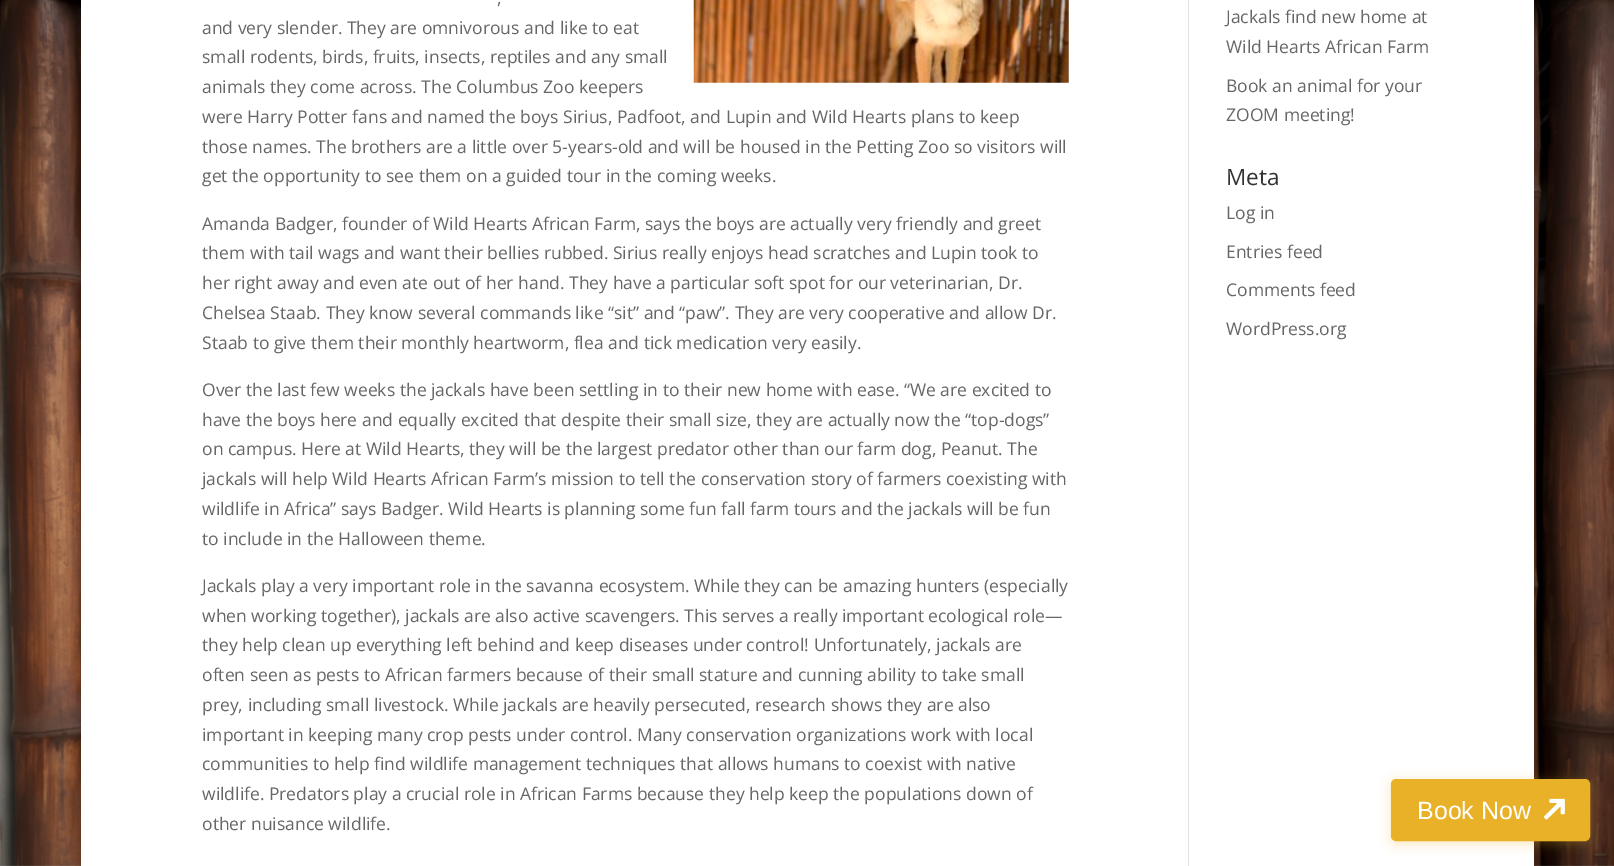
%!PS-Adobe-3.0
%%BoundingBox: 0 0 1614 866
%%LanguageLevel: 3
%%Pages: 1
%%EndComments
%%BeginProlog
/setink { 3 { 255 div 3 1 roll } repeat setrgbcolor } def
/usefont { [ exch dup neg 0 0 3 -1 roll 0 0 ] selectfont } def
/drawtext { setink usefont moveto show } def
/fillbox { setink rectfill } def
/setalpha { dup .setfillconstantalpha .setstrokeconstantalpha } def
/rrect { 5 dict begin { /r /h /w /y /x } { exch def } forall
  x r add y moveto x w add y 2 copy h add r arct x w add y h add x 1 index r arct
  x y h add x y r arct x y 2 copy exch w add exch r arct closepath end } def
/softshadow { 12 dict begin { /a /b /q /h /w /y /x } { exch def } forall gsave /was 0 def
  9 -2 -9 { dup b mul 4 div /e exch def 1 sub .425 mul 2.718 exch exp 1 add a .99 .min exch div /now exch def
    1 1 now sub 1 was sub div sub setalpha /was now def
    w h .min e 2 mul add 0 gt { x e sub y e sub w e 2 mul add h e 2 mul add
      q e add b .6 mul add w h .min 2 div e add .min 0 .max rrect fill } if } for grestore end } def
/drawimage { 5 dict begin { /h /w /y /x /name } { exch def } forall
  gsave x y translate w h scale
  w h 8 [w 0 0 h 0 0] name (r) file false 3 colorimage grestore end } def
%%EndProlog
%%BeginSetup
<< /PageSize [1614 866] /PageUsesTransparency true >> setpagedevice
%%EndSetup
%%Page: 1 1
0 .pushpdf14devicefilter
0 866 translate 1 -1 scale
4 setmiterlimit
0 0 1614 866 255 255 255 fillbox
(assets/img1.rgb) 0 0 1614 866 drawimage
0 0 0 setink
81 -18 1453 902 0 6 0.2 softshadow
81 0 1453 866 255 255 255 fillbox
1188 0 1 866 226 226 226 fillbox
(,) 497 4 /OpenSans-Regular 17.5 102 102 102 drawtext
(assets/img2.rgb) 693 0 376 83 drawimage
(and very slender. They are omnivorous and like to eat) 202 34 /OpenSans-Regular 17.5 102 102 102 drawtext
(small rodents, birds, fruits, insects, reptiles and any small) 202 63 /OpenSans-Regular 17.5 102 102 102 drawtext
(animals they come across. The Columbus Zoo keepers) 202 93 /OpenSans-Regular 17.5 102 102 102 drawtext
(were Harry Potter fans and named the boys Sirius, Padfoot, and Lupin and Wild Hearts plans to keep) 202 123 /OpenSans-Regular 17.5 102 102 102 drawtext
(those names. The brothers are a little over 5-years-old and will be housed in the Petting Zoo so visitors will) 202 153 /OpenSans-Regular 17.5 102 102 102 drawtext
(get the opportunity to see them on a guided tour in the coming weeks.) 202 182 /OpenSans-Regular 17.5 102 102 102 drawtext
(Amanda Badger, founder of Wild Hearts African Farm, says the boys are actually very friendly and greet) 202 230 /OpenSans-Regular 17.5 102 102 102 drawtext
(them with tail wags and want their bellies rubbed. Sirius really enjoys head scratches and Lupin took to) 202 259 /OpenSans-Regular 17.5 102 102 102 drawtext
(her right away and even ate out of her hand. They have a particular soft spot for our veterinarian, Dr.) 202 289 /OpenSans-Regular 17.5 102 102 102 drawtext
(Chelsea Staab. They know several commands like “sit” and “paw”. They are very cooperative and allow Dr.) 202 319 /OpenSans-Regular 17.5 102 102 102 drawtext
(Staab to give them their monthly heartworm, flea and tick medication very easily.) 202 349 /OpenSans-Regular 17.5 102 102 102 drawtext
(Over the last few weeks the jackals have been settling in to their new home with ease. “We are excited to) 202 396 /OpenSans-Regular 17.5 102 102 102 drawtext
(have the boys here and equally excited that despite their small size, they are actually now the “top-dogs”) 202 426 /OpenSans-Regular 17.5 102 102 102 drawtext
(on campus. Here at Wild Hearts, they will be the largest predator other than our farm dog, Peanut. The) 202 455 /OpenSans-Regular 17.5 102 102 102 drawtext
(jackals will help Wild Hearts African Farm’s mission to tell the conservation story of farmers coexisting with) 202 485 /OpenSans-Regular 17.5 102 102 102 drawtext
(wildlife in Africa” says Badger. Wild Hearts is planning some fun fall farm tours and the jackals will be fun) 202 515 /OpenSans-Regular 17.5 102 102 102 drawtext
(to include in the Halloween theme.) 202 545 /OpenSans-Regular 17.5 102 102 102 drawtext
(Jackals play a very important role in the savanna ecosystem. While they can be amazing hunters \(especially) 202 592 /OpenSans-Regular 17.5 102 102 102 drawtext
(when working together\), jackals are also active scavengers. This serves a really important ecological role—) 202 622 /OpenSans-Regular 17.5 102 102 102 drawtext
(they help clean up everything left behind and keep diseases under control! Unfortunately, jackals are) 202 651 /OpenSans-Regular 17.5 102 102 102 drawtext
(often seen as pests to African farmers because of their small stature and cunning ability to take small) 202 681 /OpenSans-Regular 17.5 102 102 102 drawtext
(prey, including small livestock. While jackals are heavily persecuted, research shows they are also) 202 711 /OpenSans-Regular 17.5 102 102 102 drawtext
(important in keeping many crop pests under control. Many conservation organizations work with local) 202 741 /OpenSans-Regular 17.5 102 102 102 drawtext
(communities to help find wildlife management techniques that allows humans to coexist with native) 202 770 /OpenSans-Regular 17.5 102 102 102 drawtext
(wildlife. Predators play a crucial role in African Farms because they help keep the populations down of) 202 800 /OpenSans-Regular 17.5 102 102 102 drawtext
(other nuisance wildlife.) 202 830 /OpenSans-Regular 17.5 102 102 102 drawtext
(Jackals find new home at) 1226 23 /OpenSans-Regular 17.5 102 102 102 drawtext
(Wild Hearts African Farm) 1226 53 /OpenSans-Regular 17.5 102 102 102 drawtext
(Book an animal for your) 1226 92 /OpenSans-Regular 17.5 102 102 102 drawtext
(ZOOM meeting!) 1226 121 /OpenSans-Regular 17.5 102 102 102 drawtext
(Meta) 1226 185 /OpenSans-Regular 22.5 51 51 51 drawtext
(Log in) 1226 219 /OpenSans-Regular 17.5 102 102 102 drawtext
(Entries feed) 1226 258 /OpenSans-Regular 17.5 102 102 102 drawtext
(Comments feed) 1226 296 /OpenSans-Regular 17.5 102 102 102 drawtext
(WordPress.org) 1226 335 /OpenSans-Regular 17.5 102 102 102 drawtext
232 177 39 setink
1391 781 199 63 5 6 0.3 softshadow
1391.5 779.5 198 61 4.5 rrect gsave fill grestore
stroke
(Book Now) 1417 819 /LiberationSans-Regular 25 255 255 255 drawtext
(assets/img3.rgb) 1544 798 21 22 drawimage
.poppdf14devicefilter showpage
%%EOF
